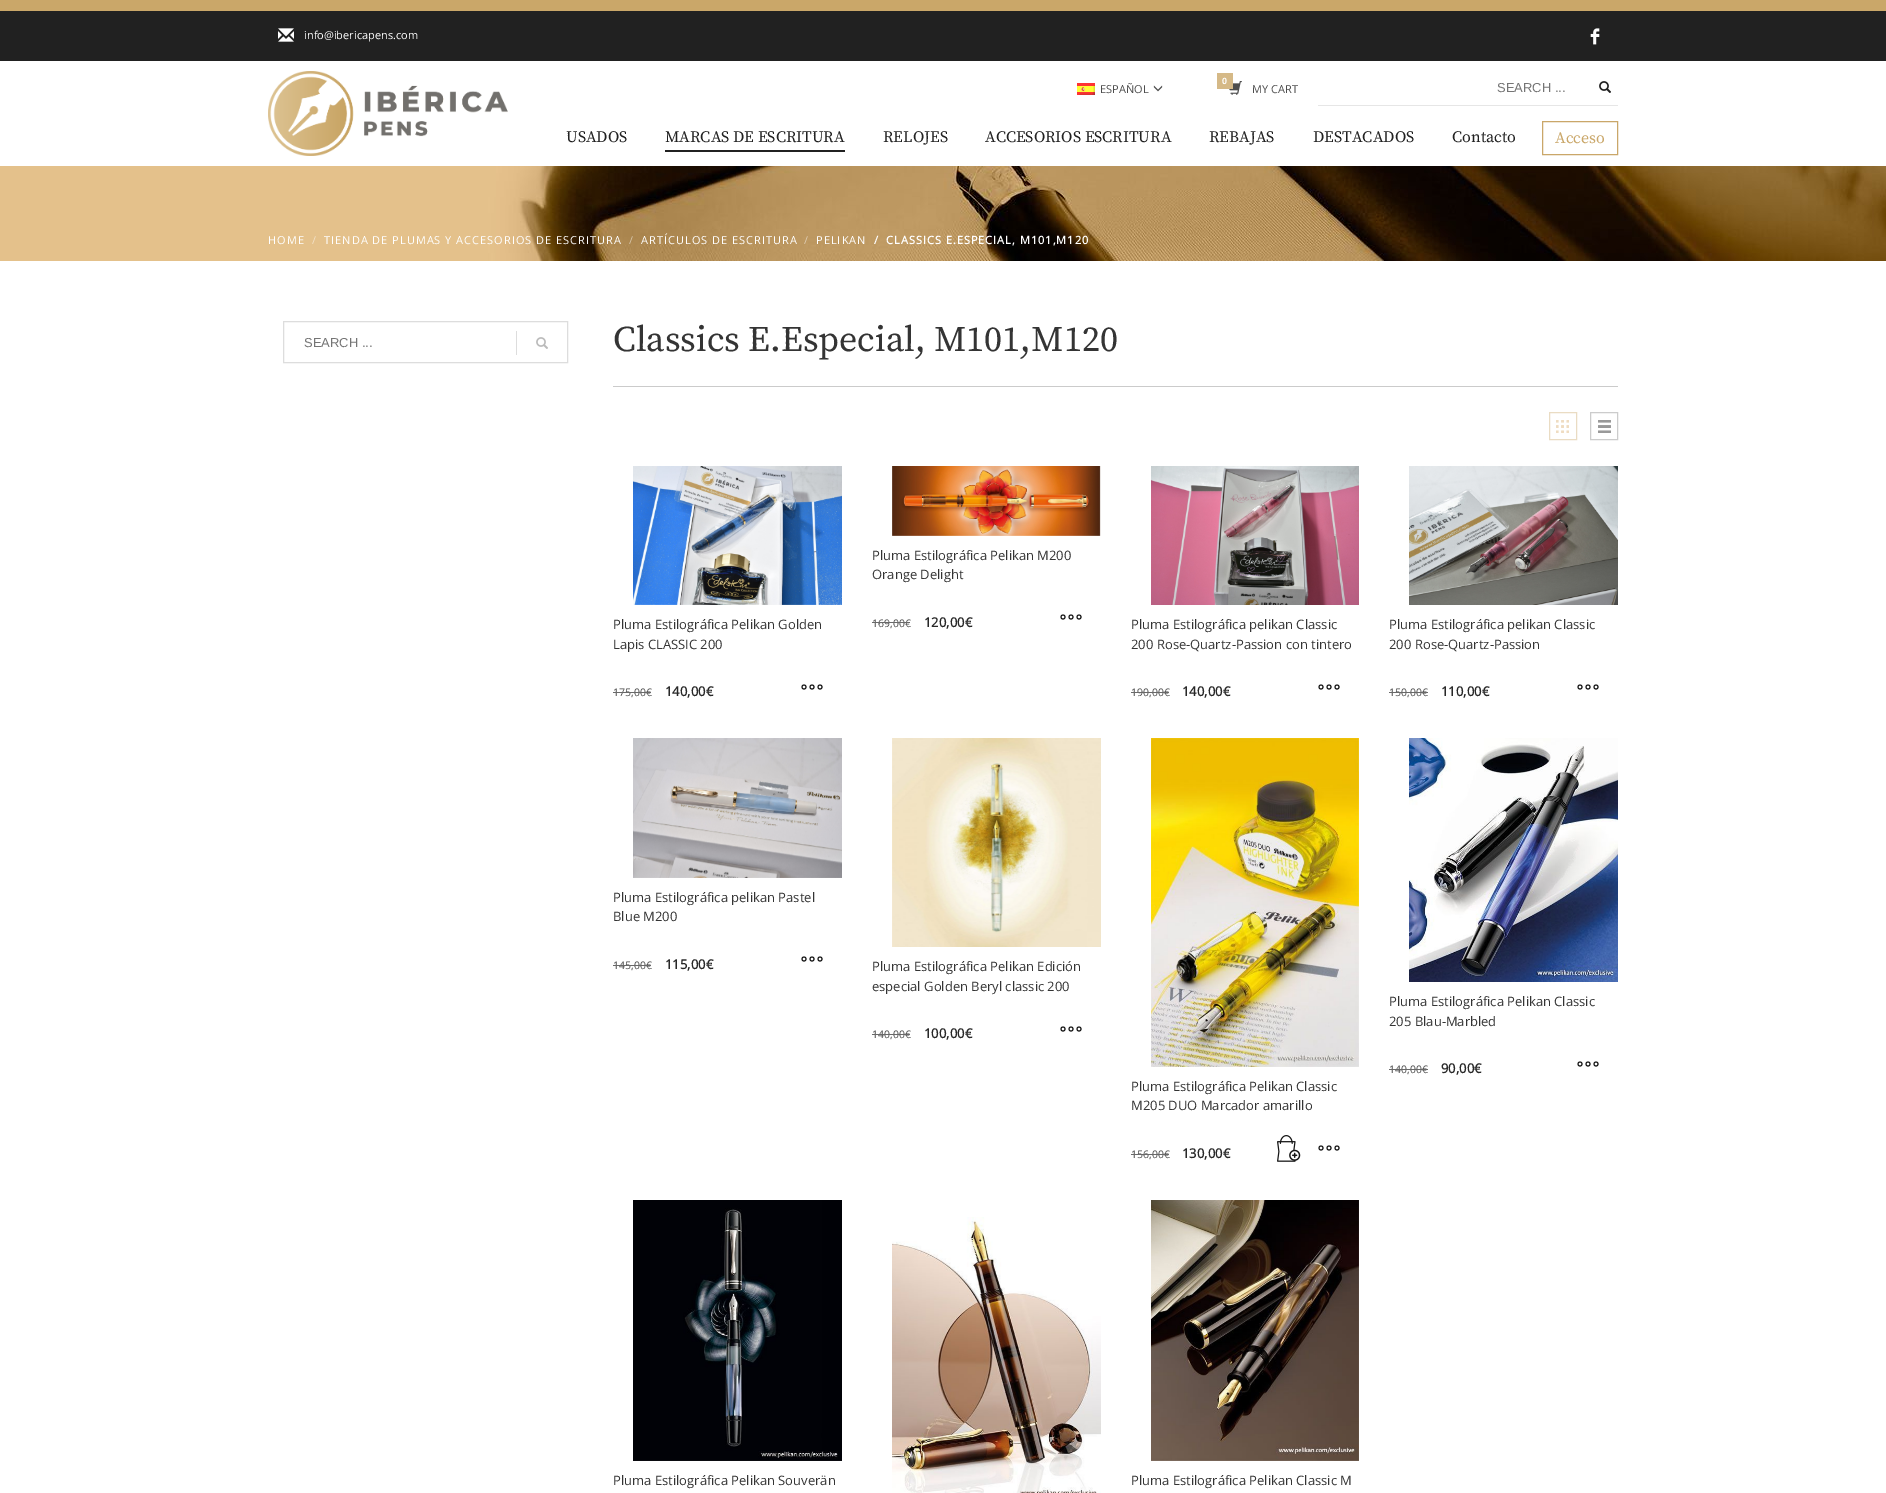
%!PS-Adobe-3.0
%%BoundingBox: 0 0 1886 1493
%%LanguageLevel: 3
%%Pages: 1
%%EndComments
%%BeginProlog
/setink { 3 { 255 div 3 1 roll } repeat setrgbcolor } def
/usefont { [ exch dup neg 0 0 3 -1 roll 0 0 ] selectfont } def
/drawtext { setink usefont moveto show } def
/fillbox { setink rectfill } def
/disc { newpath 0 360 arc closepath } def
/drawimage { 5 dict begin { /h /w /y /x /name } { exch def } forall
  gsave x y translate w h scale
  w h 8 [w 0 0 h 0 0] name (r) file false 3 colorimage grestore end } def
%%EndProlog
%%BeginSetup
<< /PageSize [1886 1493] >> setpagedevice
%%EndSetup
%%Page: 1 1
0 1493 translate 1 -1 scale
4 setmiterlimit
0 0 1886 1493 255 255 255 fillbox
0 0 1886 11 202 167 105 fillbox
0 11 1886 50 33 33 33 fillbox
(assets/img1.rgb) 278 28 16 14 drawimage
(info@ibericapens.com) 304 39 /OpenSans-Regular 11 255 255 255 drawtext
(assets/img2.rgb) 1590 28 10 17 drawimage
(assets/img3.rgb) 268 71 240 85 drawimage
(assets/img4.rgb) 1077 83 18 12 drawimage
(ESPAÑOL) 1100 93 /OpenSans-Regular 11 77 77 77 drawtext
(assets/img5.rgb) 1153 85 10 7 drawimage
(assets/img6.rgb) 1229 81 13 14 drawimage
1217 73 16 16 213 185 135 fillbox
(0) 1222 84 /LiberationSans-Bold 9 255 255 255 drawtext
(MY CART) 1252 93 /OpenSans-Regular 11 77 77 77 drawtext
1318 105 300 1 230 230 230 fillbox
(SEARCH ...) 1497 92 /LiberationSans-Regular 13 117 117 117 drawtext
(assets/img7.rgb) 1599 81 12 12 drawimage
(USADOS) 566 142 /SourceSerifPro-Regular 16 33 33 33 drawtext
(MARCAS DE ESCRITURA) 665 142 /SourceSerifPro-Regular 16 33 33 33 drawtext
665 150 180 2 33 33 33 fillbox
(RELOJES) 883 142 /SourceSerifPro-Regular 16 33 33 33 drawtext
(ACCESORIOS ESCRITURA) 985 142 /SourceSerifPro-Regular 16 33 33 33 drawtext
(REBAJAS) 1209 142 /SourceSerifPro-Regular 16 33 33 33 drawtext
(DESTACADOS) 1313 142 /SourceSerifPro-Regular 16 33 33 33 drawtext
(Contacto) 1452 142 /SourceSerifPro-Regular 16 33 33 33 drawtext
202 167 105 setink
1542.5 121.5 75 33 rectstroke
(Acceso) 1555 143 /SourceSerifPro-Regular 16 202 167 105 drawtext
(assets/img8.rgb) 0 166 1886 95 drawimage
/OpenSans-Regular 11 usefont
255 255 255 setink
268 244 moveto 1 0 (HOME) ashow
242 224 197 setink
312 244 moveto 1 0 (/) ashow
255 255 255 setink
324 244 moveto 1 0 (TIENDA DE PLUMAS Y ACCESORIOS DE ESCRITURA) ashow
213 195 167 setink
629 244 moveto 1 0 (/) ashow
255 255 255 setink
641 244 moveto 1 0 (ARTÍCULOS DE ESCRITURA) ashow
222 203 176 setink
804 244 moveto 1 0 (/) ashow
255 255 255 setink
816 244 moveto 1 0 (PELIKAN) ashow
/OpenSans-Bold 11 usefont
874 244 moveto 1 0 (/) ashow
886 244 moveto 1 0 (CLASSICS E.ESPECIAL, M101,M120) ashow
221 221 221 setink
283.5 321.5 284 41 rectstroke
(SEARCH ...) 304 347 /LiberationSans-Regular 13 117 117 117 drawtext
516 331 1 24 221 221 221 fillbox
(assets/img9.rgb) 536 337 12 12 drawimage
613 386 1005 1 203 203 203 fillbox
(Classics E.Especial, M101,M120) 613 351 /SourceSerifPro-Regular 36 52 52 52 drawtext
(assets/img10.rgb) 1556 420 13 13 drawimage
234 220 195 setink
1549.5 412.5 27 27 rectstroke
(assets/img11.rgb) 1598 420 13 13 drawimage
204 204 204 setink
1590.5 412.5 27 27 rectstroke
(assets/img12.rgb) 892 466 209 70 drawimage
(Pluma Estilográfica Pelikan M200) 872 560 /OpenSans-Regular 13 52 52 52 drawtext
(Orange Delight) 872 579 /OpenSans-Regular 13 52 52 52 drawtext
(169,00€) 872 627 /OpenSans-Regular 10.5 77 77 77 drawtext
872 622 38 1 105 105 105 fillbox
(120,00€) 924 627 /OpenSans-Bold 13 40 40 40 drawtext
20 20 20 setink
1063 617 2 disc stroke
1071 617 2 disc stroke
1079 617 2 disc stroke
(assets/img13.rgb) 633 466 209 139 drawimage
(Pluma Estilográfica Pelikan Golden) 613 629 /OpenSans-Regular 13 52 52 52 drawtext
(Lapis CLASSIC 200) 613 649 /OpenSans-Regular 13 52 52 52 drawtext
(175,00€) 613 696 /OpenSans-Regular 10.5 77 77 77 drawtext
613 692 38 1 105 105 105 fillbox
(140,00€) 665 696 /OpenSans-Bold 13 40 40 40 drawtext
20 20 20 setink
804 687 2 disc stroke
812 687 2 disc stroke
820 687 2 disc stroke
(assets/img14.rgb) 1151 466 208 139 drawimage
(Pluma Estilográfica pelikan Classic) 1131 629 /OpenSans-Regular 13 52 52 52 drawtext
(200 Rose-Quartz-Passion con tintero) 1131 649 /OpenSans-Regular 13 52 52 52 drawtext
(190,00€) 1131 696 /OpenSans-Regular 10.5 77 77 77 drawtext
1131 692 38 1 105 105 105 fillbox
(140,00€) 1182 696 /OpenSans-Bold 13 40 40 40 drawtext
20 20 20 setink
1321 687 2 disc stroke
1329 687 2 disc stroke
1337 687 2 disc stroke
(assets/img15.rgb) 1409 466 209 139 drawimage
(Pluma Estilográfica pelikan Classic) 1389 629 /OpenSans-Regular 13 52 52 52 drawtext
(200 Rose-Quartz-Passion) 1389 649 /OpenSans-Regular 13 52 52 52 drawtext
(150,00) 1389 696 /OpenSans-Regular 10.5 77 77 77 drawtext
1389 692 33 1 105 105 105 fillbox
(€) 1422 696 /OpenSans-Regular 10.5 77 77 77 drawtext
1422 692 6 1 105 105 105 fillbox
(110,00€) 1441 696 /OpenSans-Bold 13 40 40 40 drawtext
20 20 20 setink
1580 687 2 disc stroke
1588 687 2 disc stroke
1596 687 2 disc stroke
(assets/img16.rgb) 633 738 209 140 drawimage
(Pluma Estilográfica pelikan Pastel) 613 902 /OpenSans-Regular 13 52 52 52 drawtext
(Blue M200) 613 921 /OpenSans-Regular 13 52 52 52 drawtext
(145,00€) 613 969 /OpenSans-Regular 10.5 77 77 77 drawtext
613 965 38 1 105 105 105 fillbox
(115,00€) 665 969 /OpenSans-Bold 13 40 40 40 drawtext
20 20 20 setink
804 959 2 disc stroke
812 959 2 disc stroke
820 959 2 disc stroke
(assets/img17.rgb) 892 738 209 209 drawimage
(Pluma Estilográfica Pelikan Edición) 872 971 /OpenSans-Regular 13 52 52 52 drawtext
(especial Golden Beryl classic 200) 872 991 /OpenSans-Regular 13 52 52 52 drawtext
(140,00€) 872 1038 /OpenSans-Regular 10.5 77 77 77 drawtext
872 1034 38 1 105 105 105 fillbox
(100,00€) 924 1038 /OpenSans-Bold 13 40 40 40 drawtext
20 20 20 setink
1063 1029 2 disc stroke
1071 1029 2 disc stroke
1079 1029 2 disc stroke
(assets/img18.rgb) 1409 738 209 244 drawimage
(Pluma Estilográfica Pelikan Classic) 1389 1006 /OpenSans-Regular 13 52 52 52 drawtext
(205 Blau-Marbled) 1389 1026 /OpenSans-Regular 13 52 52 52 drawtext
(140,00) 1389 1073 /OpenSans-Regular 10.5 77 77 77 drawtext
1389 1069 33 1 105 105 105 fillbox
(€) 1422 1073 /OpenSans-Regular 10.5 77 77 77 drawtext
1422 1069 6 1 105 105 105 fillbox
(90,00€) 1441 1073 /OpenSans-Bold 13 40 40 40 drawtext
20 20 20 setink
1580 1064 2 disc stroke
1588 1064 2 disc stroke
1596 1064 2 disc stroke
(assets/img19.rgb) 1151 738 208 329 drawimage
(Pluma Estilográfica Pelikan Classic) 1131 1091 /OpenSans-Regular 13 52 52 52 drawtext
(M205 DUO Marcador amarillo) 1131 1110 /OpenSans-Regular 13 52 52 52 drawtext
(156,00€) 1131 1158 /OpenSans-Regular 10.5 77 77 77 drawtext
1131 1154 38 1 105 105 105 fillbox
(130,00€) 1182 1158 /OpenSans-Bold 13 40 40 40 drawtext
(assets/img20.rgb) 1277 1135 24 27 drawimage
20 20 20 setink
1321 1148 2 disc stroke
1329 1148 2 disc stroke
1337 1148 2 disc stroke
(assets/img21.rgb) 633 1200 209 261 drawimage
(Pluma Estilográfica Pelikan Souverän) 613 1485 /OpenSans-Regular 13 52 52 52 drawtext
(assets/img22.rgb) 892 1217 209 276 drawimage
(assets/img23.rgb) 1151 1200 208 261 drawimage
(Pluma Estilográfica Pelikan Classic M) 1131 1485 /OpenSans-Regular 13 52 52 52 drawtext
showpage
%%EOF
